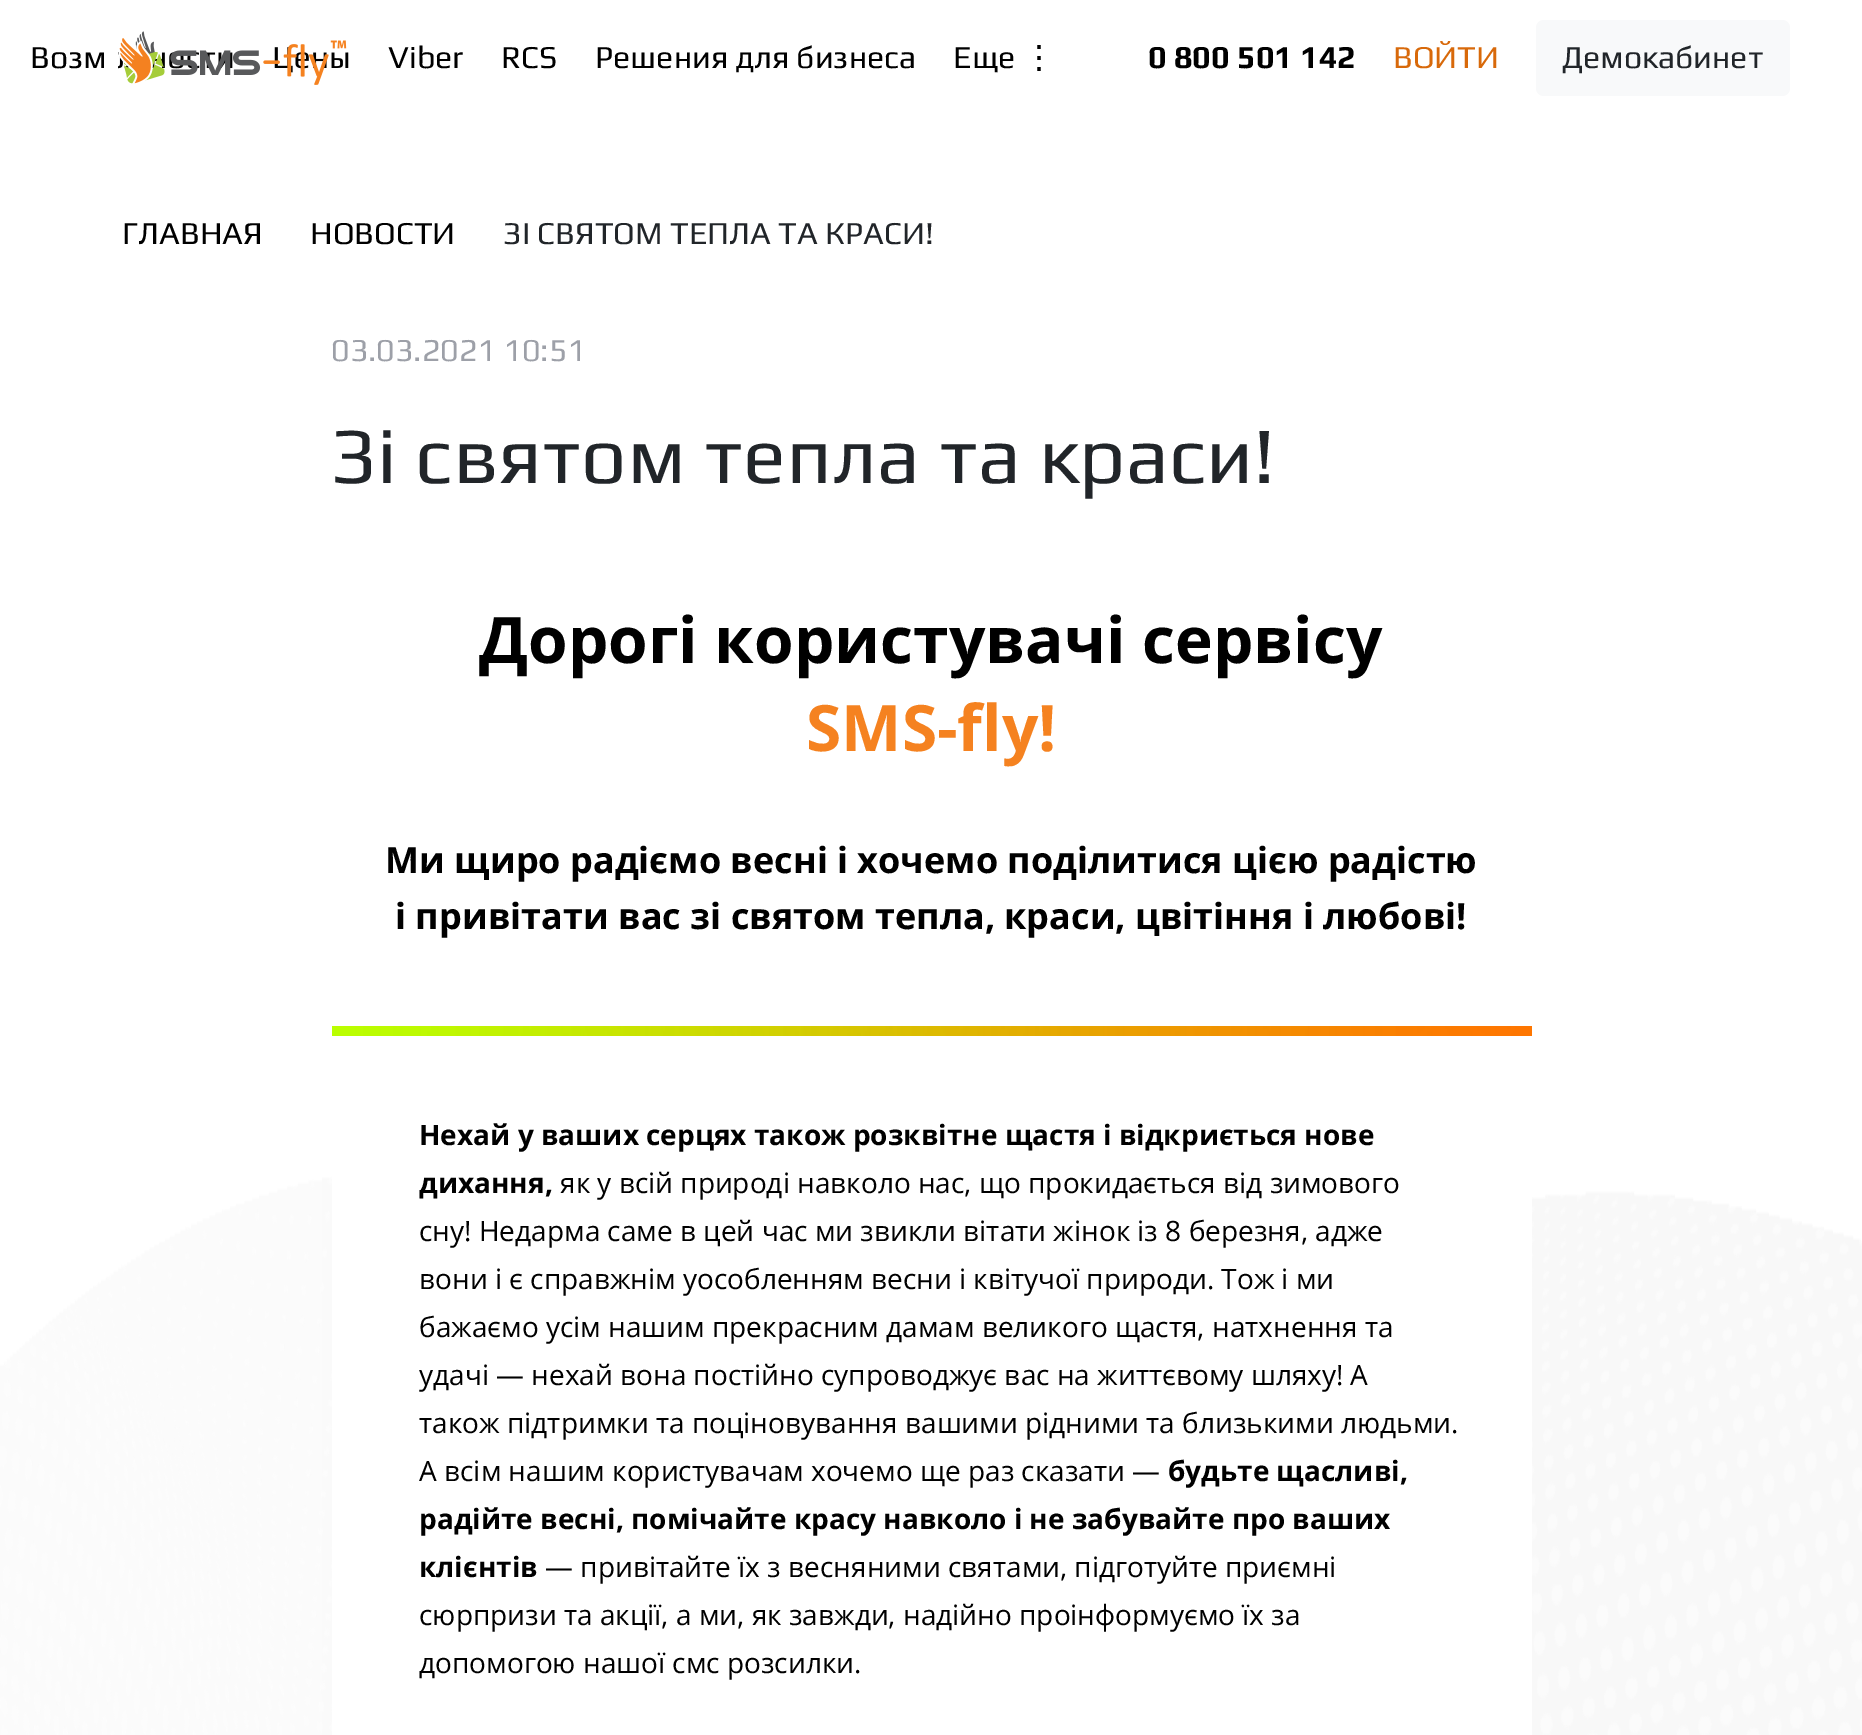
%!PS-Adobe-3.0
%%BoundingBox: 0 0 1862 1735
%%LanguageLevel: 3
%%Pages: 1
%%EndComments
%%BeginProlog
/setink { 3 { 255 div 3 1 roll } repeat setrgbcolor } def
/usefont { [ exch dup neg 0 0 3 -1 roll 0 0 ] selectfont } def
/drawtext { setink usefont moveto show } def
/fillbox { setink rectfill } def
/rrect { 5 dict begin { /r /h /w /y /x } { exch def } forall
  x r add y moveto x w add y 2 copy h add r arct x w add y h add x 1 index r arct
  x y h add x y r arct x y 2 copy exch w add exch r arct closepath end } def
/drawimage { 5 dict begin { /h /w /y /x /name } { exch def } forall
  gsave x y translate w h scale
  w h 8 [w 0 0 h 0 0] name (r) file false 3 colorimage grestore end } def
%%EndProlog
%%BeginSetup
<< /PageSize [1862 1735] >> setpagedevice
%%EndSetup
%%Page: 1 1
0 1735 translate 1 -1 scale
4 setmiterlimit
0 0 1862 1735 255 255 255 fillbox
(assets/img1.rgb) 0 1166 1862 569 drawimage
(Цены) 272 68 /Play-Regular 32 0 0 0 drawtext
(assets/img2.rgb) 118 31 229 54 drawimage
(Возм) 30 68 /Play-Regular 32 0 0 0 drawtext
(Viber) 388 68 /Play-Regular 32 0 0 0 drawtext
(RCS) 501 68 /Play-Regular 32 0 0 0 drawtext
(Решения для бизнеса) 595 68 /Play-Regular 32 0 0 0 drawtext
(Еще) 953 68 /Play-Regular 32 0 0 0 drawtext
(⋮) 1023 68 /DejaVuSans-Regular 32 0 0 0 drawtext
(0 800 501 142) 1148 68 /Play-Bold 32 0 0 0 drawtext
(ВОЙТИ) 1393 68 /Play-Regular 32 216 105 10 drawtext
248 249 250 setink
1536 20 254 76 8 rrect fill
(Демокабинет) 1562 68 /Play-Regular 32 33 37 41 drawtext
(ГЛАВНАЯ) 122 244 /Play-Regular 32 0 0 0 drawtext
(НОВОСТИ) 310 244 /Play-Regular 32 0 0 0 drawtext
(ЗІ СВЯТОМ ТЕПЛА ТА КРАСИ!) 503 244 /Play-Regular 32 33 37 41 drawtext
(03.03.2021 10:51) 331 361 /Play-Regular 32 157 160 168 drawtext
(Зі святом тепла та краси!) 331 483 /Play-Regular 80 33 37 41 drawtext
332 1166 1200 569 255 255 255 fillbox
(Дорогі користувачі сервісу) 479 663 /OpenSans-Bold 64 0 0 0 drawtext
(SMS-fly!) 806 751 /OpenSans-Bold 64 245 130 32 drawtext
(Ми щиро радіємо весні і хочемо поділитися цією радістю) 385 873 /OpenSans-Bold 36 0 0 0 drawtext
(і привітати вас зі святом тепла, краси, цвітіння і любові!) 395 929 /OpenSans-Bold 36 0 0 0 drawtext
(assets/img3.rgb) 332 1026 1200 10 drawimage
(Нехай у ваших серцях також розквітне щастя і відкриється нове) 419 1145 /OpenSans-Bold 28 0 0 0 drawtext
(дихання,) 419 1193 /OpenSans-Bold 28 0 0 0 drawtext
(як у всій природі навколо нас, що прокидається від зимового) 560 1193 /OpenSans-Regular 28 0 0 0 drawtext
(сну! Недарма саме в цей час ми звикли вітати жінок із 8 березня, адже) 419 1241 /OpenSans-Regular 28 0 0 0 drawtext
(вони і є справжнім уособленням весни і квітучої природи. Тож і ми) 419 1289 /OpenSans-Regular 28 0 0 0 drawtext
(бажаємо усім нашим прекрасним дамам великого щастя, натхнення та) 419 1337 /OpenSans-Regular 28 0 0 0 drawtext
(удачі — нехай вона постійно супроводжує вас на життєвому шляху! А) 419 1385 /OpenSans-Regular 28 0 0 0 drawtext
(також підтримки та поціновування вашими рідними та близькими людьми.) 419 1433 /OpenSans-Regular 28 0 0 0 drawtext
(А всім нашим користувачам хочемо ще раз сказати —) 419 1481 /OpenSans-Regular 28 0 0 0 drawtext
(будьте щасливі,) 1168 1481 /OpenSans-Bold 28 0 0 0 drawtext
(радійте весні, помічайте красу навколо і не забувайте про ваших) 419 1529 /OpenSans-Bold 28 0 0 0 drawtext
(клієнтів) 419 1577 /OpenSans-Bold 28 0 0 0 drawtext
(— привітайте їх з весняними святами, підготуйте приємні) 545 1577 /OpenSans-Regular 28 0 0 0 drawtext
(сюрпризи та акції, а ми, як завжди, надійно проінформуємо їх за) 419 1625 /OpenSans-Regular 28 0 0 0 drawtext
(допомогою нашої смс розсилки.) 419 1673 /OpenSans-Regular 28 0 0 0 drawtext
showpage
%%EOF
